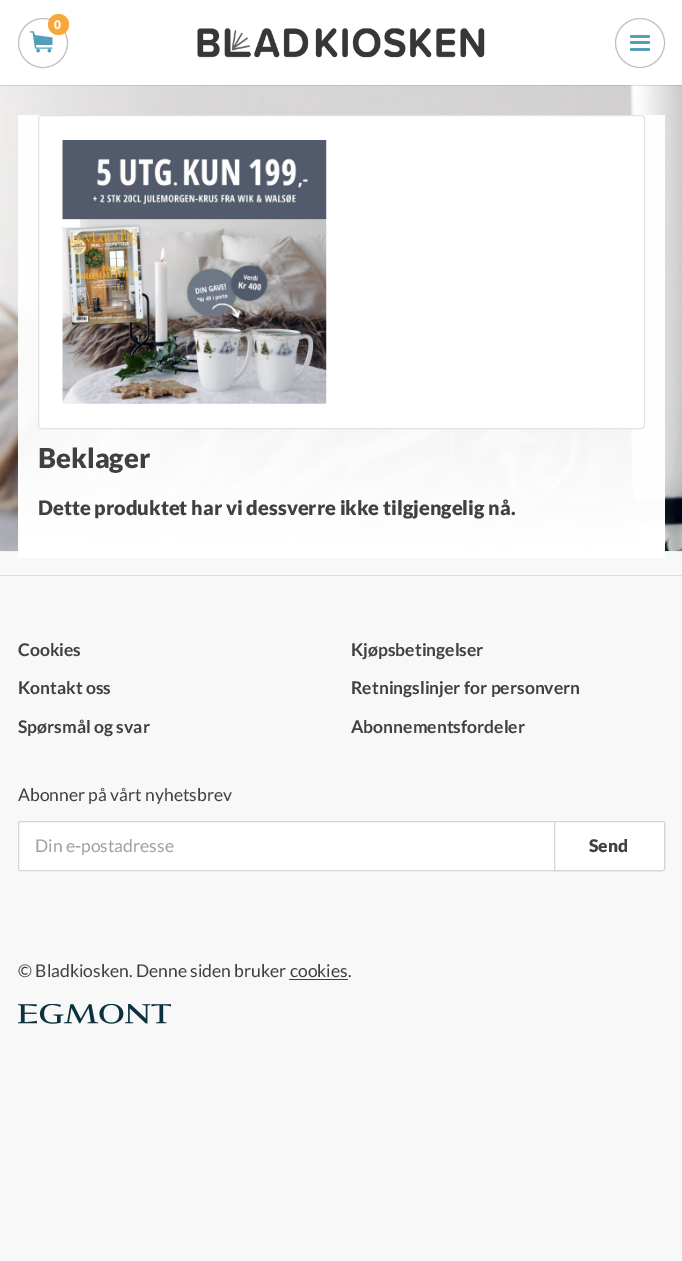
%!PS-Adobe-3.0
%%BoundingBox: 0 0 682 1261
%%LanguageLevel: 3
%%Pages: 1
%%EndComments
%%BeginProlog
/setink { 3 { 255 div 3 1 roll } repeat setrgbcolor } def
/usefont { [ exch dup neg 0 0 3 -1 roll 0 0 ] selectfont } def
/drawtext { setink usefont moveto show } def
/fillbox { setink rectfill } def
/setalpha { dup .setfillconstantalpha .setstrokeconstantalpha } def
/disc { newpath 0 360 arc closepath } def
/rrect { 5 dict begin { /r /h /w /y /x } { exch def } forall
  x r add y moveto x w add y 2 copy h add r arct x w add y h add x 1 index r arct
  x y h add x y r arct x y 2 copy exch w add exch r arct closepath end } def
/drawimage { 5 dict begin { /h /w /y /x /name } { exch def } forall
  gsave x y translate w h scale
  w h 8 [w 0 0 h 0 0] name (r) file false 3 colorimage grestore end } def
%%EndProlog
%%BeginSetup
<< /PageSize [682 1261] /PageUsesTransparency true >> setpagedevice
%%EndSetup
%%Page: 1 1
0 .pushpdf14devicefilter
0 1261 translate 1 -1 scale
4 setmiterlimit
0 0 682 1261 248 248 248 fillbox
(assets/img3.rgb) 0 85 682 467 drawimage
0.11 setalpha
0 0 0 setink
0 85 moveto 0 86 lineto 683 86 lineto 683 1 lineto 682 1 lineto 682 85 lineto closepath fill
1 setalpha
0 0 682 85 255 255 255 fillbox
191 191 191 setink
43 43 24.5 disc stroke
(assets/img1.rgb) 30 31 23 22 drawimage
248 167 61 setink
58.5 24.5 10.5 disc fill
(0) 54 29 /Lato-Black 12 255 255 255 drawtext
191 191 191 setink
640 43 24.5 disc stroke
82 160 184 setink
630 41 20 3 1.5 rrect fill
630 35 20 3 1.5 rrect fill
630 48 20 3 1.5 rrect fill
(assets/img2.rgb) 197 28 288 30 drawimage
0.95 setalpha
18 115 647 443 255 255 255 fillbox
1 setalpha
38 115 607 314 4 rrect fill
0.11 setalpha
0 0 0 setink
38.5 115.5 606 313 3.5 rrect stroke
1 setalpha
(assets/img4.rgb) 62 140 265 264 drawimage
(Beklager) 38 468 /Lato-Black 27.5 64 64 64 drawtext
(Dette produktet har vi dessverre ikke tilgjengelig nå.) 38 515 /Lato-Black 20 64 64 64 drawtext
0 575 682 1 221 221 221 fillbox
(Cookies) 18 656 /Lato-Bold 17.5 64 64 64 drawtext
(Kjøpsbetingelser) 351 656 /Lato-Bold 17.5 64 64 64 drawtext
(Kontakt oss) 18 694 /Lato-Bold 17.5 64 64 64 drawtext
(Retningslinjer for personvern) 351 694 /Lato-Bold 17.5 64 64 64 drawtext
(Spørsmål og svar) 18 733 /Lato-Bold 17.5 64 64 64 drawtext
(Abonnementsfordeler) 351 733 /Lato-Bold 17.5 64 64 64 drawtext
(Abonner på vårt nyhetsbrev) 18 801 /Lato-Regular 17.5 64 64 64 drawtext
255 255 255 setink
18.5 821.5 646 49 2 rrect gsave fill grestore
214 214 214 setink
stroke
(Din e-postadresse) 35 852 /Lato-Regular 17.5 160 160 160 drawtext
0.95 setalpha
255 255 255 setink
554.5 821.5 moveto 662.5 821.5 lineto 663.5 821.5 664.5 822.5 664.5 823.5 curveto 664.5 868.5 lineto 664.5 869.5 663.5 870.5 662.5 870.5 curveto 554.5 870.5 lineto closepath fill
1 setalpha
214 214 214 setink
554.5 821.5 moveto 662.5 821.5 lineto 663.5 821.5 664.5 822.5 664.5 823.5 curveto 664.5 868.5 lineto 664.5 869.5 663.5 870.5 662.5 870.5 curveto 554.5 870.5 lineto closepath stroke
(Send) 589 852 /Lato-Black 17.5 64 64 64 drawtext
(© Bladkiosken. Denne siden bruker cookies.) 18 977 /Lato-Regular 17.5 64 64 64 drawtext
289 979 59 1 64 64 64 fillbox
(assets/img5.rgb) 18 1004 153 20 drawimage
.poppdf14devicefilter showpage
%%EOF
